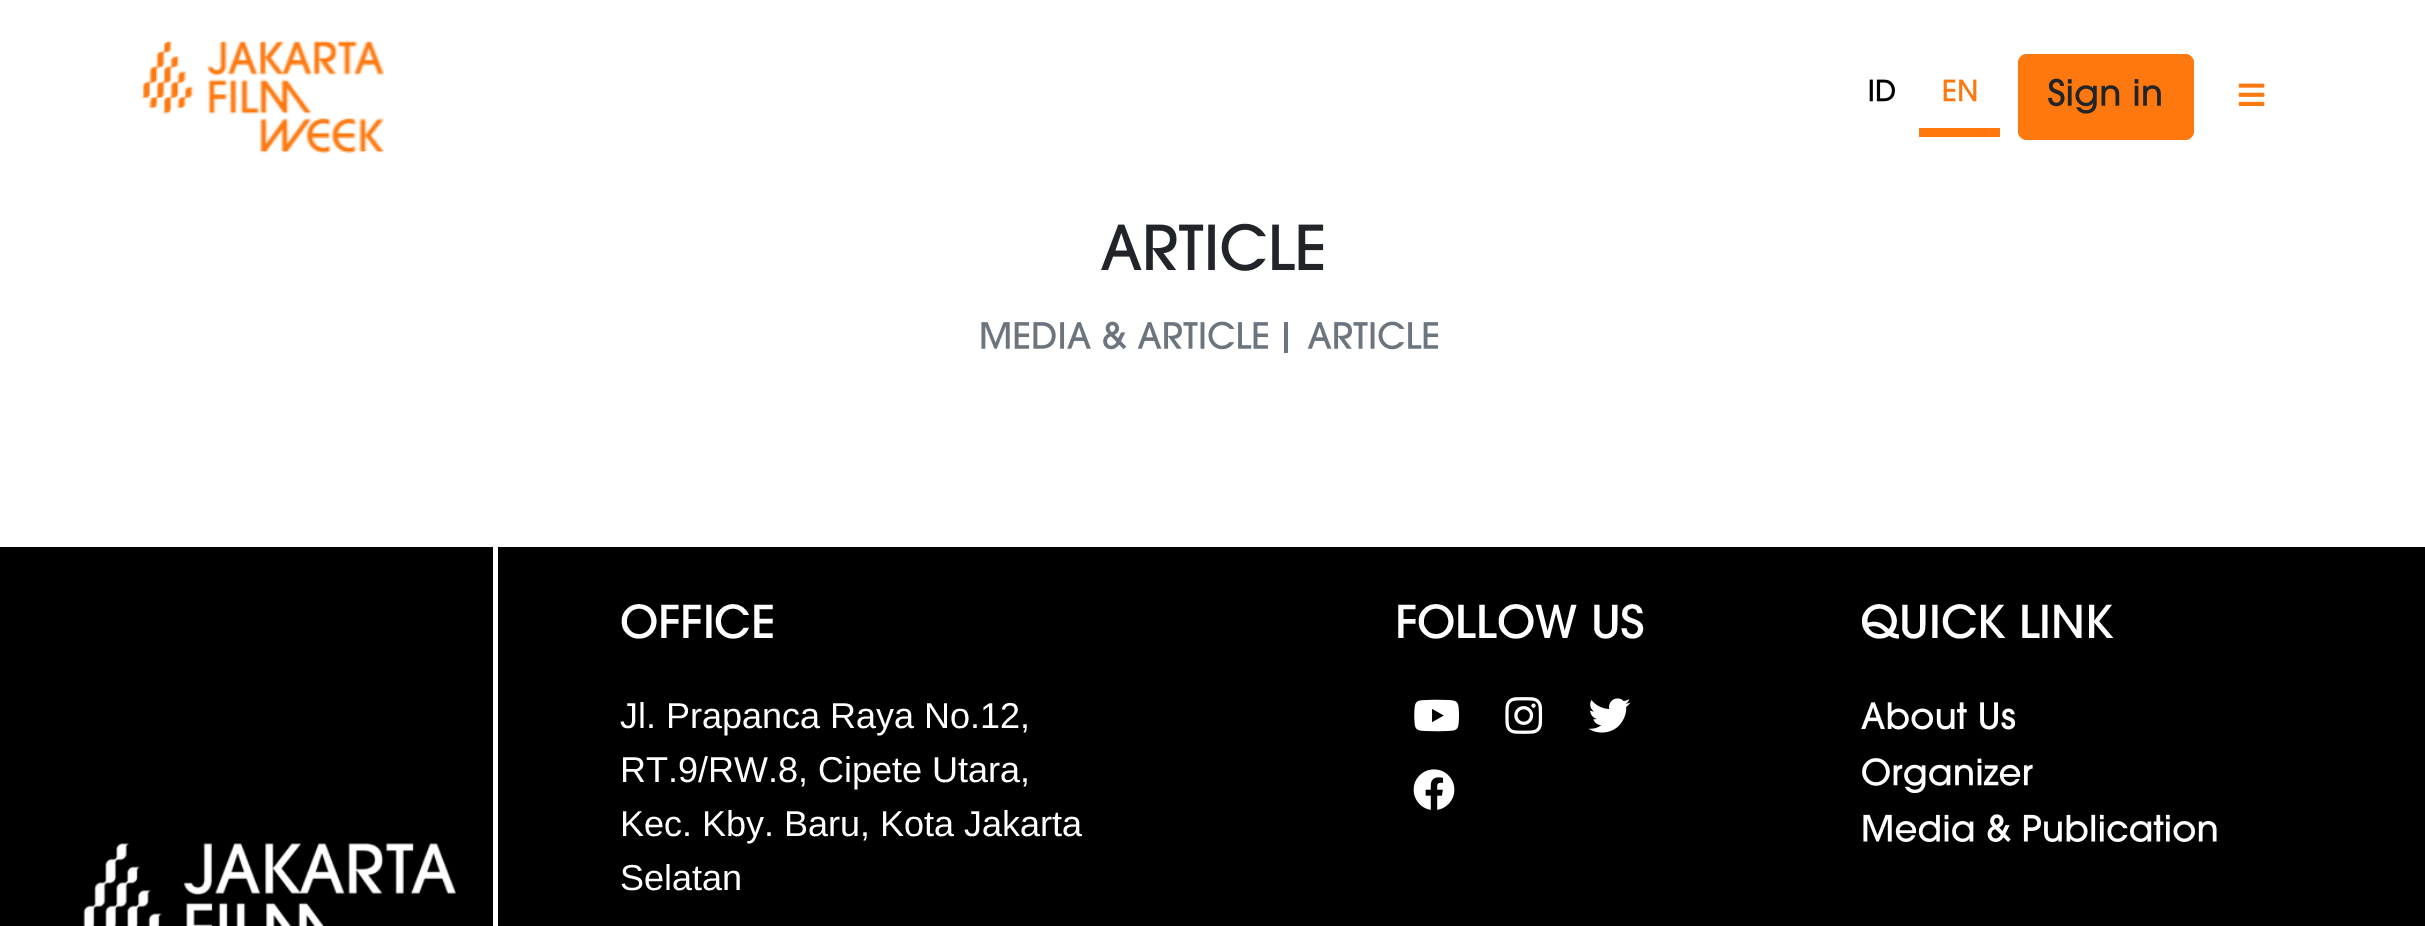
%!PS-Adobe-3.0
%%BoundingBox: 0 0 2425 926
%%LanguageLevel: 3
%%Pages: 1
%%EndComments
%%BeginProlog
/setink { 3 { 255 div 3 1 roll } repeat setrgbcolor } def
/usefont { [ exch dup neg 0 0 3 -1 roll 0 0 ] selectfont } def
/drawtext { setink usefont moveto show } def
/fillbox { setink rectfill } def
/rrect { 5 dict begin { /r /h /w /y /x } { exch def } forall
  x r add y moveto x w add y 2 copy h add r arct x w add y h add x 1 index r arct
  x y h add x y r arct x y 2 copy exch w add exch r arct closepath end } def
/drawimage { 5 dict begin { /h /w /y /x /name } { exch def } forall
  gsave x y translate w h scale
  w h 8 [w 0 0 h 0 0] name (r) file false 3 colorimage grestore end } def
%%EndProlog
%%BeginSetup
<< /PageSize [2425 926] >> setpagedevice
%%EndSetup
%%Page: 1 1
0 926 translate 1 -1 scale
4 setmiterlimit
0 0 2425 926 255 255 255 fillbox
(assets/img1.rgb) 141 40 244 114 drawimage
(assets/img2.rgb) 1869 79 26 23 drawimage
1919 128 81 9 253 120 15 fillbox
(assets/img3.rgb) 1943 79 34 23 drawimage
2018 54 176 86 9 rrect fill
(assets/img4.rgb) 2048 78 113 36 drawimage
(assets/img5.rgb) 2238 83 27 23 drawimage
(assets/img6.rgb) 1101 223 223 48 drawimage
(assets/img7.rgb) 981 321 287 29 drawimage
1284 322 4 31 108 117 125 fillbox
(assets/img8.rgb) 1307 321 131 29 drawimage
0 547 2425 379 0 0 0 fillbox
(assets/img9.rgb) 83 843 373 83 drawimage
493 547 5 379 255 255 255 fillbox
(OFFICE) 620 638 /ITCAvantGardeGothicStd-Medium 45 255 255 255 drawtext
(Jl. Prapanca Raya No.12,) 620 728 /LiberationSans-Regular 36 255 255 255 drawtext
(RT.9/RW.8, Cipete Utara,) 620 782 /LiberationSans-Regular 36 255 255 255 drawtext
(Kec. Kby. Baru, Kota Jakarta) 620 836 /LiberationSans-Regular 36 255 255 255 drawtext
(Selatan) 620 890 /LiberationSans-Regular 36 255 255 255 drawtext
(FOLLOW US) 1395 638 /ITCAvantGardeGothicStd-Medium 45 255 255 255 drawtext
(assets/img10.rgb) 1414 699 45 33 drawimage
(assets/img11.rgb) 1505 697 38 37 drawimage
(assets/img12.rgb) 1588 698 43 35 drawimage
(assets/img13.rgb) 1413 769 42 41 drawimage
(QUICK LINK) 1860 638 /ITCAvantGardeGothicStd-Medium 45 255 255 255 drawtext
(assets/img14.rgb) 1861 702 155 28 drawimage
(assets/img15.rgb) 1862 758 171 36 drawimage
(assets/img16.rgb) 1863 814 354 28 drawimage
showpage
%%EOF
